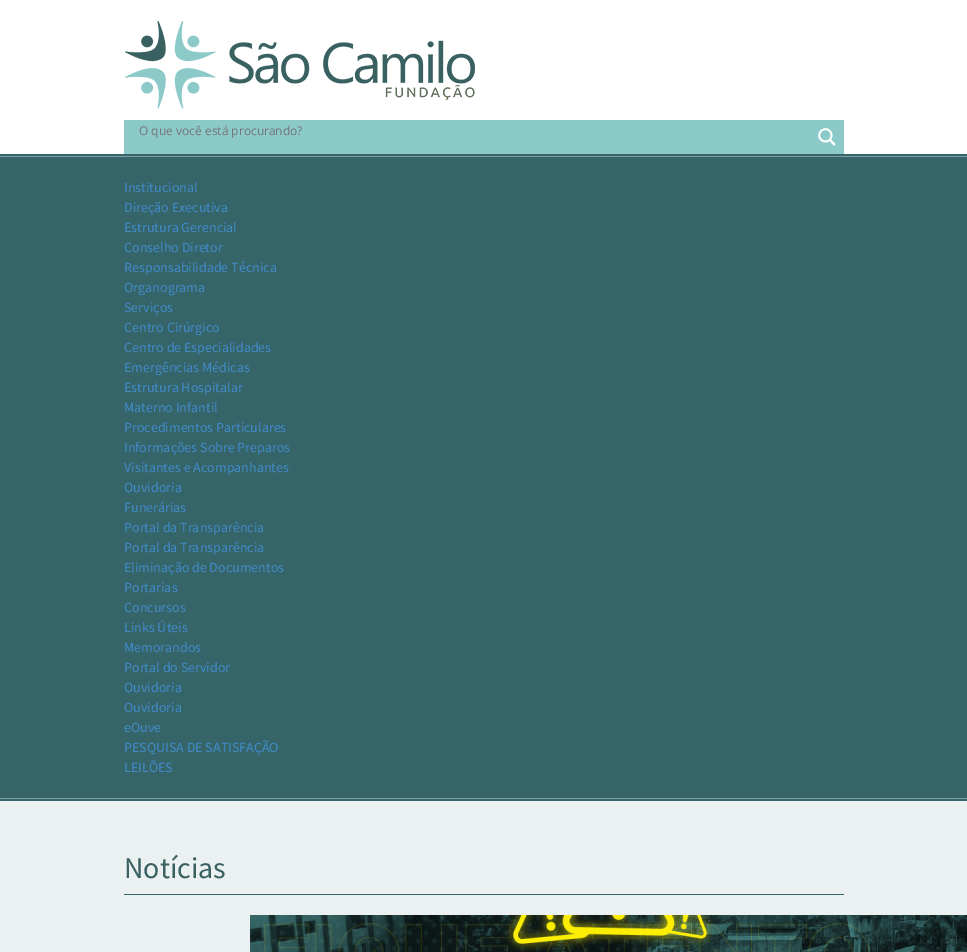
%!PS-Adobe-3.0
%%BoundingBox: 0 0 967 952
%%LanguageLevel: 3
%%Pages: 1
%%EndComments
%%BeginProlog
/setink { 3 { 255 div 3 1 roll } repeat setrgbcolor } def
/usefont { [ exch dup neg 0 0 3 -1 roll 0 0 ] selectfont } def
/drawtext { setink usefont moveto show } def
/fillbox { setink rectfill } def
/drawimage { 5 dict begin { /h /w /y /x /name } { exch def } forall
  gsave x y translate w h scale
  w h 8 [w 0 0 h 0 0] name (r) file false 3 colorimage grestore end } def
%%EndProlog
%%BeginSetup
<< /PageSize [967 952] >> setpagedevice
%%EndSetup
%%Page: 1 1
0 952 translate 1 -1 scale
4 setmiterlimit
0 0 967 952 255 255 255 fillbox
(assets/img1.rgb) 125 21 350 88 drawimage
124 120 720 34 140 202 202 fillbox
(O que você está procurando?) 139 135 /OpenSans-Regular 12 117 117 117 drawtext
(assets/img2.rgb) 818 128 18 18 drawimage
53 101 105 setink
2 setlinewidth
-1 155 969 645 rectstroke
0 157 967 641 53 101 105 fillbox
0 156 967 1 127 162 168 fillbox
0 798 967 1 127 162 168 fillbox
(Institucional) 124 192 /SourceSansPro-Regular 14 66 139 202 drawtext
(Direção Executiva) 124 212 /SourceSansPro-Regular 14 66 139 202 drawtext
(Estrutura Gerencial) 124 232 /SourceSansPro-Regular 14 66 139 202 drawtext
(Conselho Diretor) 124 252 /SourceSansPro-Regular 14 66 139 202 drawtext
(Responsabilidade Técnica) 124 272 /SourceSansPro-Regular 14 66 139 202 drawtext
(Organograma) 124 292 /SourceSansPro-Regular 14 66 139 202 drawtext
(Serviços) 124 312 /SourceSansPro-Regular 14 66 139 202 drawtext
(Centro Cirúrgico) 124 332 /SourceSansPro-Regular 14 66 139 202 drawtext
(Centro de Especialidades) 124 352 /SourceSansPro-Regular 14 66 139 202 drawtext
(Emergências Médicas) 124 372 /SourceSansPro-Regular 14 66 139 202 drawtext
(Estrutura Hospitalar) 124 392 /SourceSansPro-Regular 14 66 139 202 drawtext
(Materno Infantil) 124 412 /SourceSansPro-Regular 14 66 139 202 drawtext
(Procedimentos Particulares) 124 432 /SourceSansPro-Regular 14 66 139 202 drawtext
(Informações Sobre Preparos) 124 452 /SourceSansPro-Regular 14 66 139 202 drawtext
(Visitantes e Acompanhantes) 124 472 /SourceSansPro-Regular 14 66 139 202 drawtext
(Ouvidoria) 124 492 /SourceSansPro-Regular 14 66 139 202 drawtext
(Funerárias) 124 512 /SourceSansPro-Regular 14 66 139 202 drawtext
(Portal da Transparência) 124 532 /SourceSansPro-Regular 14 66 139 202 drawtext
(Portal da Transparência) 124 552 /SourceSansPro-Regular 14 66 139 202 drawtext
(Eliminação de Documentos) 124 572 /SourceSansPro-Regular 14 66 139 202 drawtext
(Portarias) 124 592 /SourceSansPro-Regular 14 66 139 202 drawtext
(Concursos) 124 612 /SourceSansPro-Regular 14 66 139 202 drawtext
(Links Úteis) 124 632 /SourceSansPro-Regular 14 66 139 202 drawtext
(Memorandos) 124 652 /SourceSansPro-Regular 14 66 139 202 drawtext
(Portal do Servidor) 124 672 /SourceSansPro-Regular 14 66 139 202 drawtext
(Ouvidoria) 124 692 /SourceSansPro-Regular 14 66 139 202 drawtext
(Ouvidoria) 124 712 /SourceSansPro-Regular 14 66 139 202 drawtext
(eOuve) 124 732 /SourceSansPro-Regular 14 66 139 202 drawtext
(PESQUISA DE SATISFAÇÃO) 124 752 /SourceSansPro-Regular 14 66 139 202 drawtext
(LEILÕES) 124 772 /SourceSansPro-Regular 14 66 139 202 drawtext
0 801 967 151 235 240 240 fillbox
124 894 720 1 52 101 104 fillbox
(Notícias) 124 878 /SourceSansPro-Regular 30 58 97 97 drawtext
(assets/img3.rgb) 250 915 717 37 drawimage
showpage
%%EOF
